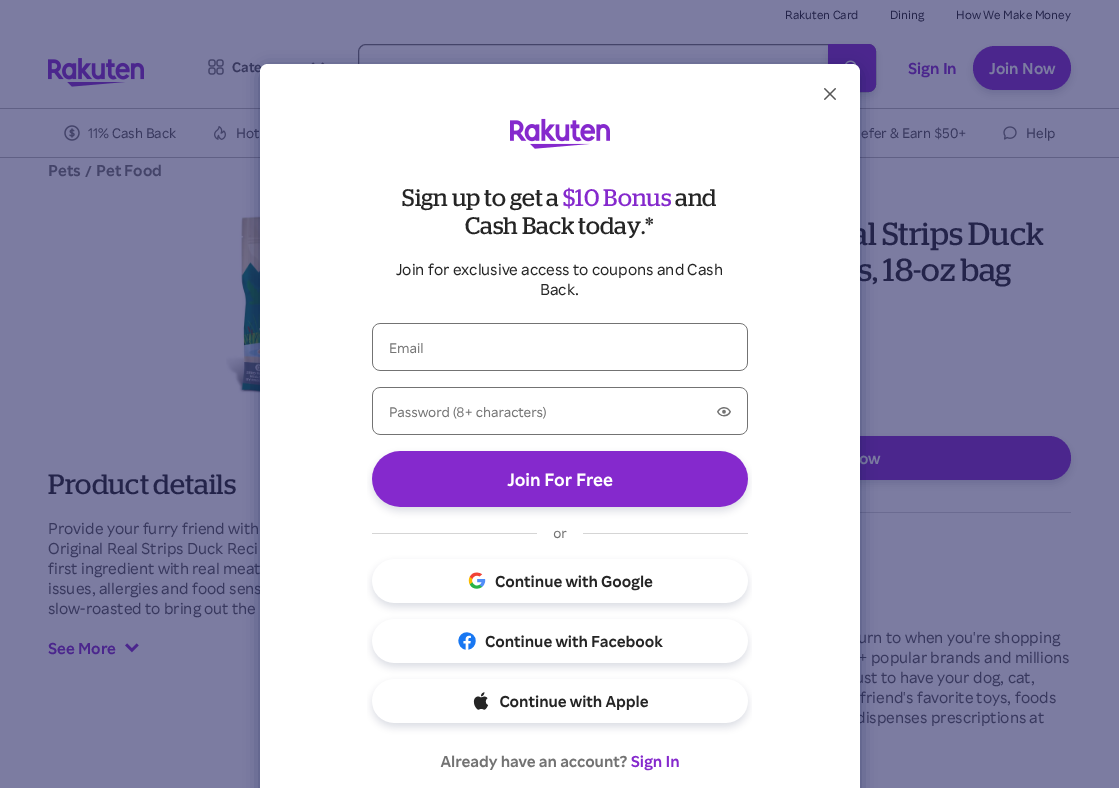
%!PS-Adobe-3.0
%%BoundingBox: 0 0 1119 788
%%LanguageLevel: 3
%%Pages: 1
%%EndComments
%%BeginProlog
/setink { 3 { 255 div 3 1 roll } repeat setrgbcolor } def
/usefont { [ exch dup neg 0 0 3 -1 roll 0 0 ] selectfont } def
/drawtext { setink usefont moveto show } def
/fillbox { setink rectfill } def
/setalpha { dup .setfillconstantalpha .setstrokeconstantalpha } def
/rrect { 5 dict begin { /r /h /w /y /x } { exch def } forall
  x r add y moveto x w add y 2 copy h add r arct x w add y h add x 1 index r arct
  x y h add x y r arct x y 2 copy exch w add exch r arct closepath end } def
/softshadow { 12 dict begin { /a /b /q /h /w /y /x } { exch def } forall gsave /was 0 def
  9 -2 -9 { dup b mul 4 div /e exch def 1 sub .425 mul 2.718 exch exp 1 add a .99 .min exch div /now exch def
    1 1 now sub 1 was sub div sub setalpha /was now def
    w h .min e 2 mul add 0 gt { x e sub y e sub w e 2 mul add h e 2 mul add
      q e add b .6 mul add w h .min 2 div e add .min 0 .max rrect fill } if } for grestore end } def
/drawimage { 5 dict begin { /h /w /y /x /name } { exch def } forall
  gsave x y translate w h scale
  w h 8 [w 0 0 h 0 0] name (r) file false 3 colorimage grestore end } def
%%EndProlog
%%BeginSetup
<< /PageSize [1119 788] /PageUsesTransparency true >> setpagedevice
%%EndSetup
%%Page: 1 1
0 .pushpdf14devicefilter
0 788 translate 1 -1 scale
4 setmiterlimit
0 0 1119 788 124 124 161 fillbox
(Rakuten Card) 785 19 /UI-Regular 12 36 36 74 drawtext
(Dining) 890 19 /UI-Regular 12 36 36 74 drawtext
(How We Make Money) 956 19 /UI-Regular 12 36 36 74 drawtext
0 108 1119 1 96 96 133 fillbox
(assets/img1.rgb) 48 58 96 29 drawimage
(assets/img2.rgb) 208 59 16 16 drawimage
(Cate) 232 72 /UI-SemiBold 14 56 56 94 drawtext
(assets/img3.rgb) 311 62 14 2 drawimage
68 68 105 setink
358.5 44.5 517 47 7.5 rrect stroke
26 30 87 setink
828 48 48 48 8 4 0.15 softshadow
75 38 141 setink
828 44 moveto 868 44 lineto 872.5 44 876 47.5 876 52 curveto 876 84 lineto 876 88.5 872.5 92 868 92 curveto 828 92 lineto closepath fill
(assets/img4.rgb) 845 60 12 6 drawimage
(Sign In) 908 74 /UI-SemiBold 16 75 38 141 drawtext
26 30 87 setink
973 50 98 44 22 4 0.15 softshadow
75 38 141 setink
973 46 98 44 22 rrect fill
(Join Now) 989 74 /UI-SemiBold 16 124 124 161 drawtext
0 157 1119 1 96 96 133 fillbox
(assets/img5.rgb) 64 125 16 16 drawimage
(11% Cash Back) 88 138 /UI-Regular 14 56 56 94 drawtext
(assets/img6.rgb) 214 126 12 14 drawimage
(Hot) 236 138 /UI-Regular 14 56 56 94 drawtext
(efer & Earn $50+) 861 138 /UI-Regular 14 56 56 94 drawtext
(assets/img7.rgb) 1003 126 14 14 drawimage
(Help) 1026 138 /UI-Regular 14 56 56 94 drawtext
(Pets) 48 176 /UI-SemiBold 16 68 68 105 drawtext
(/) 85 177 /UI-SemiBold 16 68 68 105 drawtext
(Pet Food) 96 176 /UI-SemiBold 16 68 68 105 drawtext
(assets/img8.rgb) 226 215 34 214 drawimage
(Product details) 48 494 /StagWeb-Regular 28 36 36 74 drawtext
(Provide your furry friend with) 48 534 /UI-Regular 16 56 56 94 drawtext
(Original Real Strips Duck Reci) 48 554 /UI-Regular 16 56 56 94 drawtext
(first ingredient with real meat) 48 574 /UI-Regular 16 56 56 94 drawtext
(issues, allergies and food sens) 48 594 /UI-Regular 16 56 56 94 drawtext
(slow-roasted to bring out the) 48 614 /UI-Regular 16 56 56 94 drawtext
(See More) 48 654 /UI-SemiBold 16 75 38 141 drawtext
(assets/img9.rgb) 125 643 14 10 drawimage
(al Strips Duck) 851 245 /StagWeb-Regular 32 36 36 74 drawtext
(s, 18-oz bag) 858 281 /StagWeb-Regular 32 36 36 74 drawtext
26 30 87 setink
616 440 455 44 22 4 0.15 softshadow
75 38 141 setink
616 436 455 44 22 rrect fill
(ow) 859 464 /UI-SemiBold 16 124 124 161 drawtext
860 512 211 1 107 107 145 fillbox
(urn to when you're shopping) 858 643 /UI-Regular 16 56 56 94 drawtext
(+ popular brands and millions) 858 663 /UI-Regular 16 56 56 94 drawtext
(ust to have your dog, cat,) 855 683 /UI-Regular 16 56 56 94 drawtext
(friend's favorite toys, foods) 860 703 /UI-Regular 16 56 56 94 drawtext
(dispenses prescriptions at) 856 723 /UI-Regular 16 56 56 94 drawtext
10 22 70 setink
260 68 600 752 8 8 0.4 softshadow
255 255 255 setink
268 64 moveto 852 64 lineto 856.5 64 860 67.5 860 72 curveto 860 788 lineto 260 788 lineto 260 72 lineto 260 67.5 263.5 64 268 64 curveto closepath fill
(assets/img10.rgb) 824 88 12 12 drawimage
(assets/img11.rgb) 510 118 100 31 drawimage
(Sign up to get a) 402 206 /StagWeb-Regular 24 37 37 37 drawtext
($10 Bonus) 563 206 /StagWeb-Regular 24 133 41 205 drawtext
(and) 675 206 /StagWeb-Regular 24 37 37 37 drawtext
(Cash Back today.*) 465 234 /StagWeb-Regular 24 37 37 37 drawtext
(Join for exclusive access to coupons and Cash) 396 275 /UI-Regular 16 37 37 37 drawtext
(Back.) 540 295 /UI-Regular 16 37 37 37 drawtext
(assets/img12.rgb) 367 323 385 448 drawimage
.poppdf14devicefilter showpage
%%EOF
